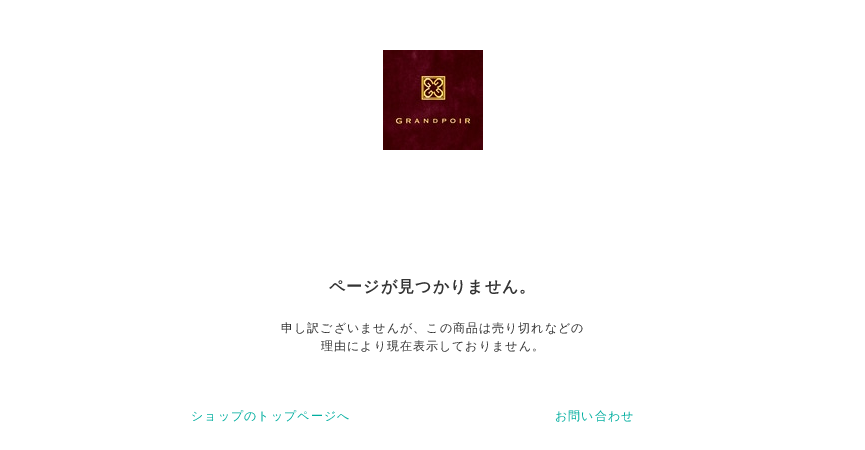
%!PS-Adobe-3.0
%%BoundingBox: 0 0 865 450
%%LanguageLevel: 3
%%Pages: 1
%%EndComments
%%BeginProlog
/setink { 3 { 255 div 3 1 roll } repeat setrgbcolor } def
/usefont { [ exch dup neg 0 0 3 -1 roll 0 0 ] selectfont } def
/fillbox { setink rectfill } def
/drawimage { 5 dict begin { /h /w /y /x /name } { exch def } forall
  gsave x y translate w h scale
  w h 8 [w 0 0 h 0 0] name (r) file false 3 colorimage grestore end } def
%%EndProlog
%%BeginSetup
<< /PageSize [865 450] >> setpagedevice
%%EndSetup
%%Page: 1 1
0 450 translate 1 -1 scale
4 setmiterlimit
0 0 865 450 255 255 255 fillbox
(assets/img1.rgb) 383 50 100 100 drawimage
/WenQuanYiZenHei-Bold 16 usefont
51 51 51 setink
329 292 moveto 1 0 (ページが見つかりません。) ashow
/WenQuanYiZenHei-Medium 12 usefont
281 332 moveto 1 0 (申し訳ございませんが、この商品は売り切れなどの) ashow
321 350 moveto 1 0 (理由により現在表示しておりません。) ashow
0 174 159 setink
191 420 moveto 1 0 (ショップのトップページへ) ashow
555 420 moveto 1 0 (お問い合わせ) ashow
showpage
%%EOF
